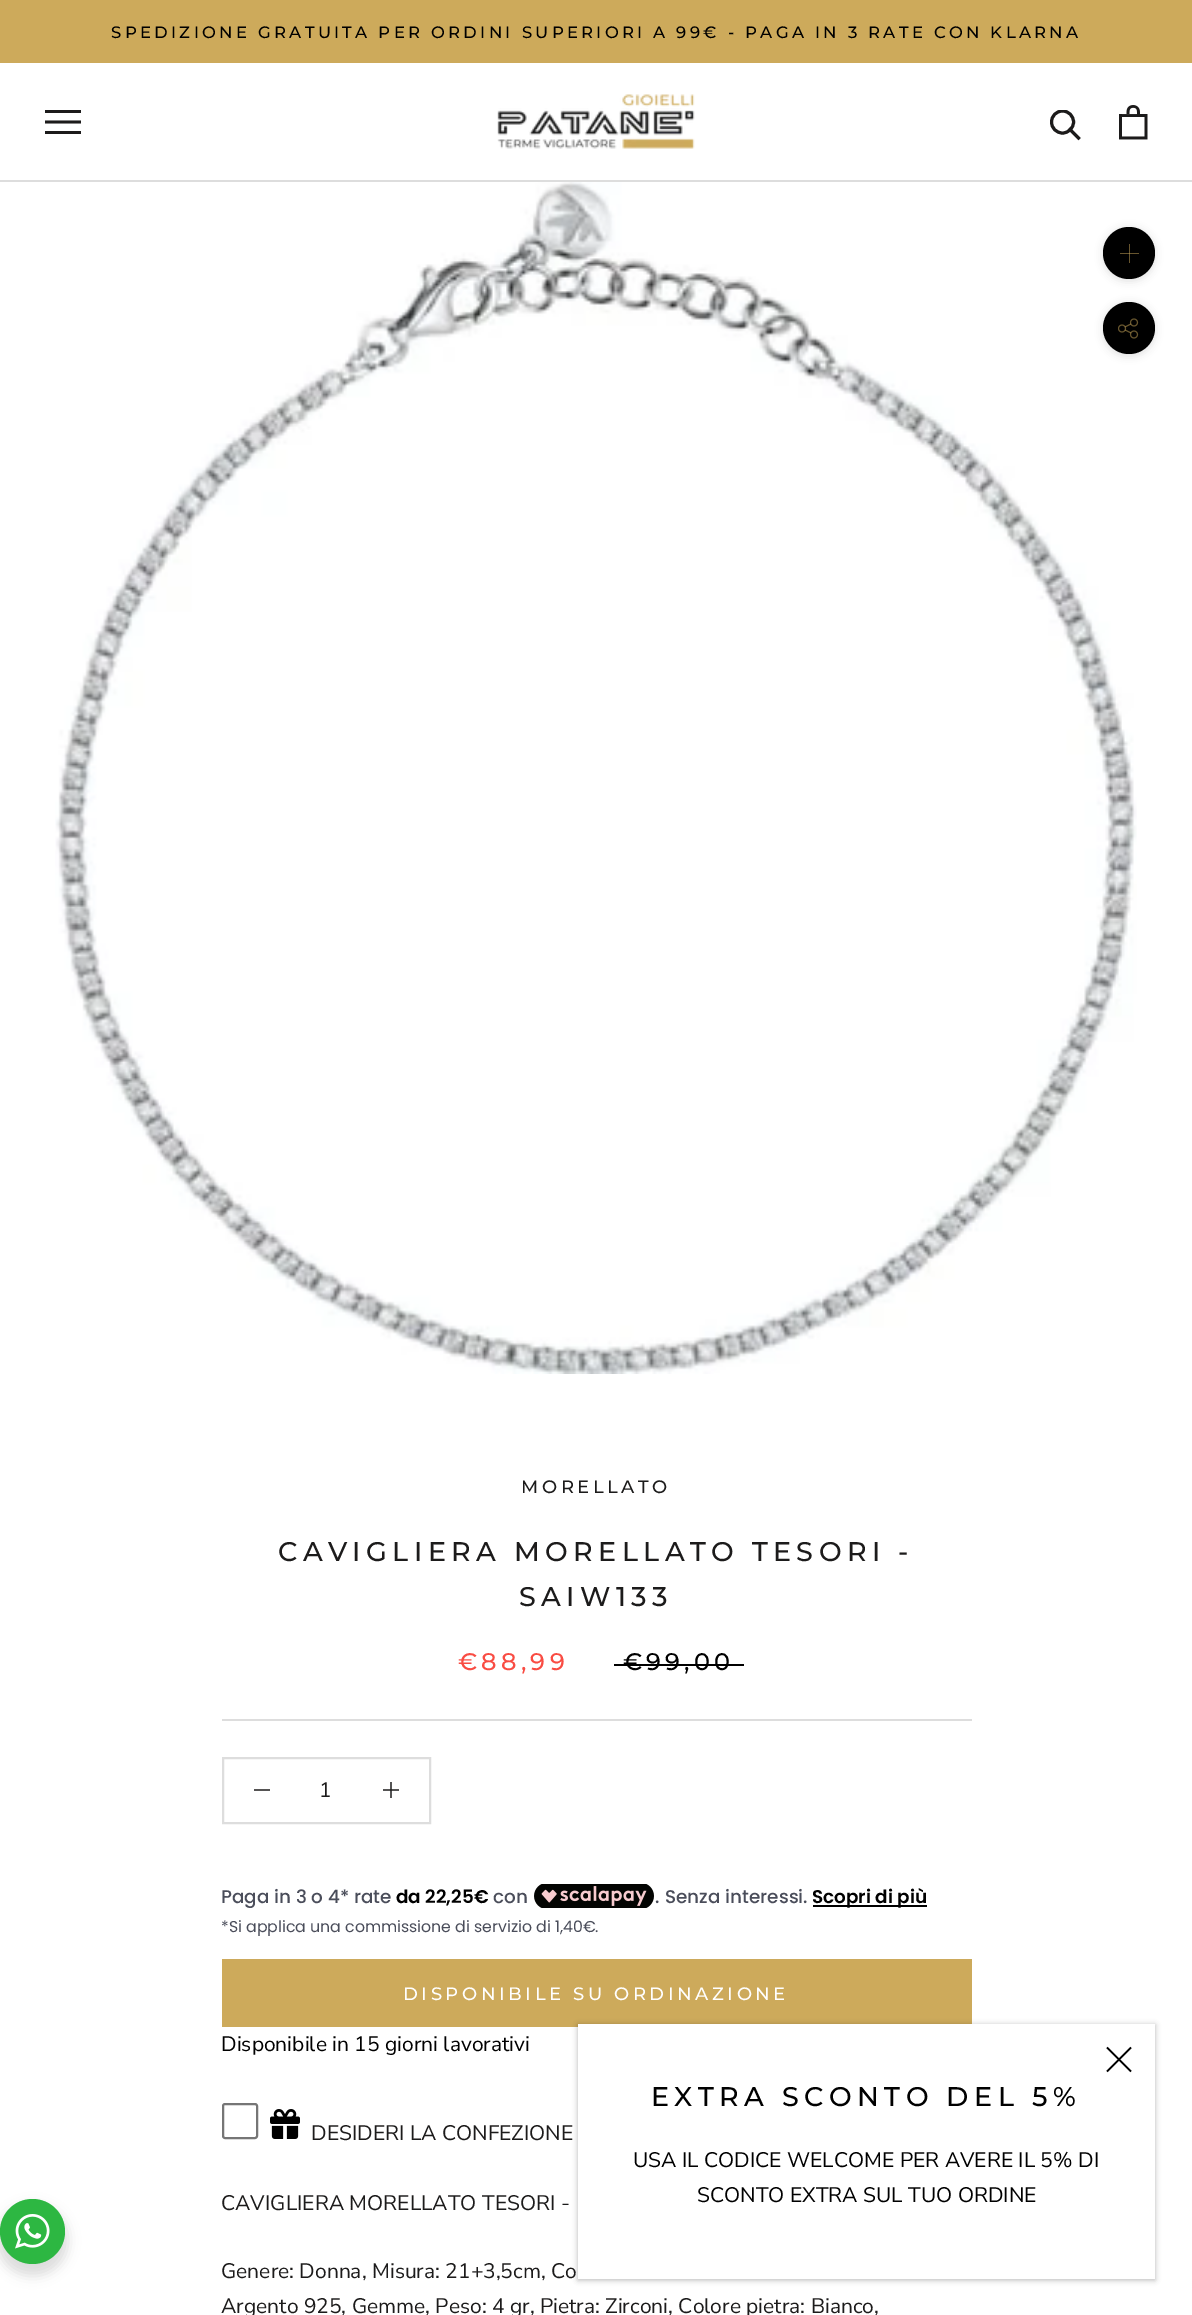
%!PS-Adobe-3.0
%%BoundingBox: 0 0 1192 2315
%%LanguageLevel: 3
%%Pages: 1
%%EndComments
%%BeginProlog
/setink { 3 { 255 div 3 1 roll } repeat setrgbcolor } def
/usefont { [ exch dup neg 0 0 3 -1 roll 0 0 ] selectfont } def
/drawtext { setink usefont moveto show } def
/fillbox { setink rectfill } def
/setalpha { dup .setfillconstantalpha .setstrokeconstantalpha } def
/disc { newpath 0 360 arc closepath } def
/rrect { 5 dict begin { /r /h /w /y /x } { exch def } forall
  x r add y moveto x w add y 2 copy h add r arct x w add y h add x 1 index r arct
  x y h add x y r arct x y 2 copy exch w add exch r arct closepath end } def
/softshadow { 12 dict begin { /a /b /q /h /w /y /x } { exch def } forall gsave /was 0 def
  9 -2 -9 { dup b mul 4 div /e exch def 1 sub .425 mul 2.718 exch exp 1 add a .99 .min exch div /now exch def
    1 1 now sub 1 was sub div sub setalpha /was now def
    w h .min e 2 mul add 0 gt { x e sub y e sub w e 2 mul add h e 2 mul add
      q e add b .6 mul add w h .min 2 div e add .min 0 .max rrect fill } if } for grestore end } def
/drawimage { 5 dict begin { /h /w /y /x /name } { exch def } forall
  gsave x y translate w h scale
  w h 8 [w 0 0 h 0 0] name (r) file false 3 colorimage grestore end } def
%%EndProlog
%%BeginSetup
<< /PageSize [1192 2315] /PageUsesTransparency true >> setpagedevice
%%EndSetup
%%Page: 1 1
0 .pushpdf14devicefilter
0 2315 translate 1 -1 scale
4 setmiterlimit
0 0 1192 2315 255 255 255 fillbox
383 1789 16 2 85 84 84 fillbox
0 0 1192 63 205 170 91 fillbox
/Montserrat-Medium 16.5 usefont
0 0 0 setink
111 38 moveto 3.3 0 (SPEDIZIONE GRATUITA PER ORDINI SUPERIORI A 99€ - PAGA IN 3 RATE CON KLARNA) ashow
0 180 1192 2 221 221 221 fillbox
28 27 27 setink
45 134 moveto 45 131 lineto 81 131 lineto 81 134 lineto closepath 45 120.5 moveto 81 120.5 lineto 81 123.5 lineto 45 123.5 lineto closepath 45 110 moveto 81 110 lineto 81 113 lineto 45 113 lineto closepath fill
(assets/img1.rgb) 497 94 198 55 drawimage
3 setlinewidth
2 setlinecap
1078.5 138 moveto 1070 129.5 lineto stroke
gsave
1050 110 32 31 rectclip
0 setlinecap
1062.5 122 11 disc stroke
grestore
(assets/img2.rgb) 1119 105 29 35 drawimage
(assets/img3.rgb) 55 182 1082 1192 drawimage
54 54 54 setink
1103 228 52 53 26 4 0.15 softshadow
0 0 0 setink
1129 253 26 disc fill
1129 244 1 19 103 85 46 fillbox
0.5 setalpha
1120 253 19 1 205 170 91 fillbox
1 setalpha
54 54 54 setink
1103 303 52 53 26 4 0.15 softshadow
0 0 0 setink
1129 328 26 disc fill
(assets/img4.rgb) 1118 318 21 21 drawimage
222 1719 750 2 221 221 221 fillbox
/Montserrat-Medium 18 usefont
28 27 27 setink
521 1493 moveto 3.6 0 (MORELLATO) ashow
/Montserrat-Medium 27 usefont
278 1561 moveto 5.4 0 (CAVIGLIERA MORELLATO TESORI -) ashow
519 1606 moveto 5.4 0 (SAIW133) ashow
/Montserrat-Medium 24 usefont
249 76 67 setink
458 1670 moveto 4.25 0 (€88,99) ashow
0 0 0 setink
623 1670 moveto 4.25 0 (€99,00) ashow
614 1664 130 2 0 0 0 fillbox
221 221 221 setink
2 setlinewidth
0 setlinecap
223 1758 207 65 rectstroke
254 1789 16 2 85 84 84 fillbox
(1) 319 1797 /NunitoSans-Regular 21 28 27 27 drawtext
390 1782 2 16 85 84 84 fillbox
390 1789 2 2 42 41 41 fillbox
(Paga in 3 o 4* rate) 221 1903 /Poppins-Medium 18.4 74 77 90 drawtext
(da 22,25€) 396 1903 /Poppins-SemiBold 18.4 0 0 0 drawtext
(con) 493 1903 /Poppins-Medium 18.4 74 77 90 drawtext
(assets/img5.rgb) 534 1884 120 24 drawimage
(.) 655 1903 /Poppins-Medium 18.4 74 77 90 drawtext
(Senza interessi.) 665 1903 /Poppins-Medium 18.4 74 77 90 drawtext
813 1905 114 2 0 0 0 fillbox
(Scopri di più) 812 1903 /Poppins-SemiBold 18.4 0 0 0 drawtext
(*Si applica una commissione di servizio di 1,40€.) 221 1932 /Poppins-Regular 15.75 74 77 90 drawtext
222 1959 750 68 205 170 91 fillbox
/Montserrat-Medium 18 usefont
255 255 255 setink
403 2000 moveto 3.6 0 (DISPONIBILE SU ORDINAZIONE) ashow
(Disponibile in 15 giorni lavorativi) 221 2051 /NunitoSans-Regular 21 0 0 0 drawtext
118 118 118 setink
223 2104 34 34 2 rrect stroke
(assets/img6.rgb) 270 2109 30 30 drawimage
(DESIDERI LA CONFEZIONE) 311 2140 /NunitoSans-Regular 21 28 27 27 drawtext
(CAVIGLIERA MORELLATO TESORI -) 221 2210 /NunitoSans-Regular 21 28 27 27 drawtext
(Genere: Donna, Misura: 21+3,5cm, Co) 221 2278 /NunitoSans-Regular 21 28 27 27 drawtext
(Argento 925, Gemme, Peso: 4 gr, Pietra: Zirconi, Colore pietra: Bianco,) 221 2313 /NunitoSans-Regular 21 28 27 27 drawtext
0 0 0 setink
578 2025 577 255 0 3 0.3 softshadow
578 2024 577 255 255 255 255 fillbox
0 0 0 setink
1.7 setlinewidth
1131 2047.5 moveto 1107 2071.5 lineto 1131 2071.5 moveto 1107 2047.5 lineto stroke
/Montserrat-Medium 27 usefont
651 2106 moveto 5.4 0 (EXTRA SCONTO DEL 5%) ashow
(USA IL CODICE WELCOME PER AVERE IL 5% DI) 633 2167 /NunitoSans-Regular 21 0 0 0 drawtext
(SCONTO EXTRA SUL TUO ORDINE) 697 2202 /NunitoSans-Regular 21 0 0 0 drawtext
-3 2205 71 71 35.5 6 0.14 softshadow
45 183 66 setink
32.5 2231.5 32.5 disc fill
(assets/img7.rgb) 15 2214 35 35 drawimage
.poppdf14devicefilter showpage
%%EOF
